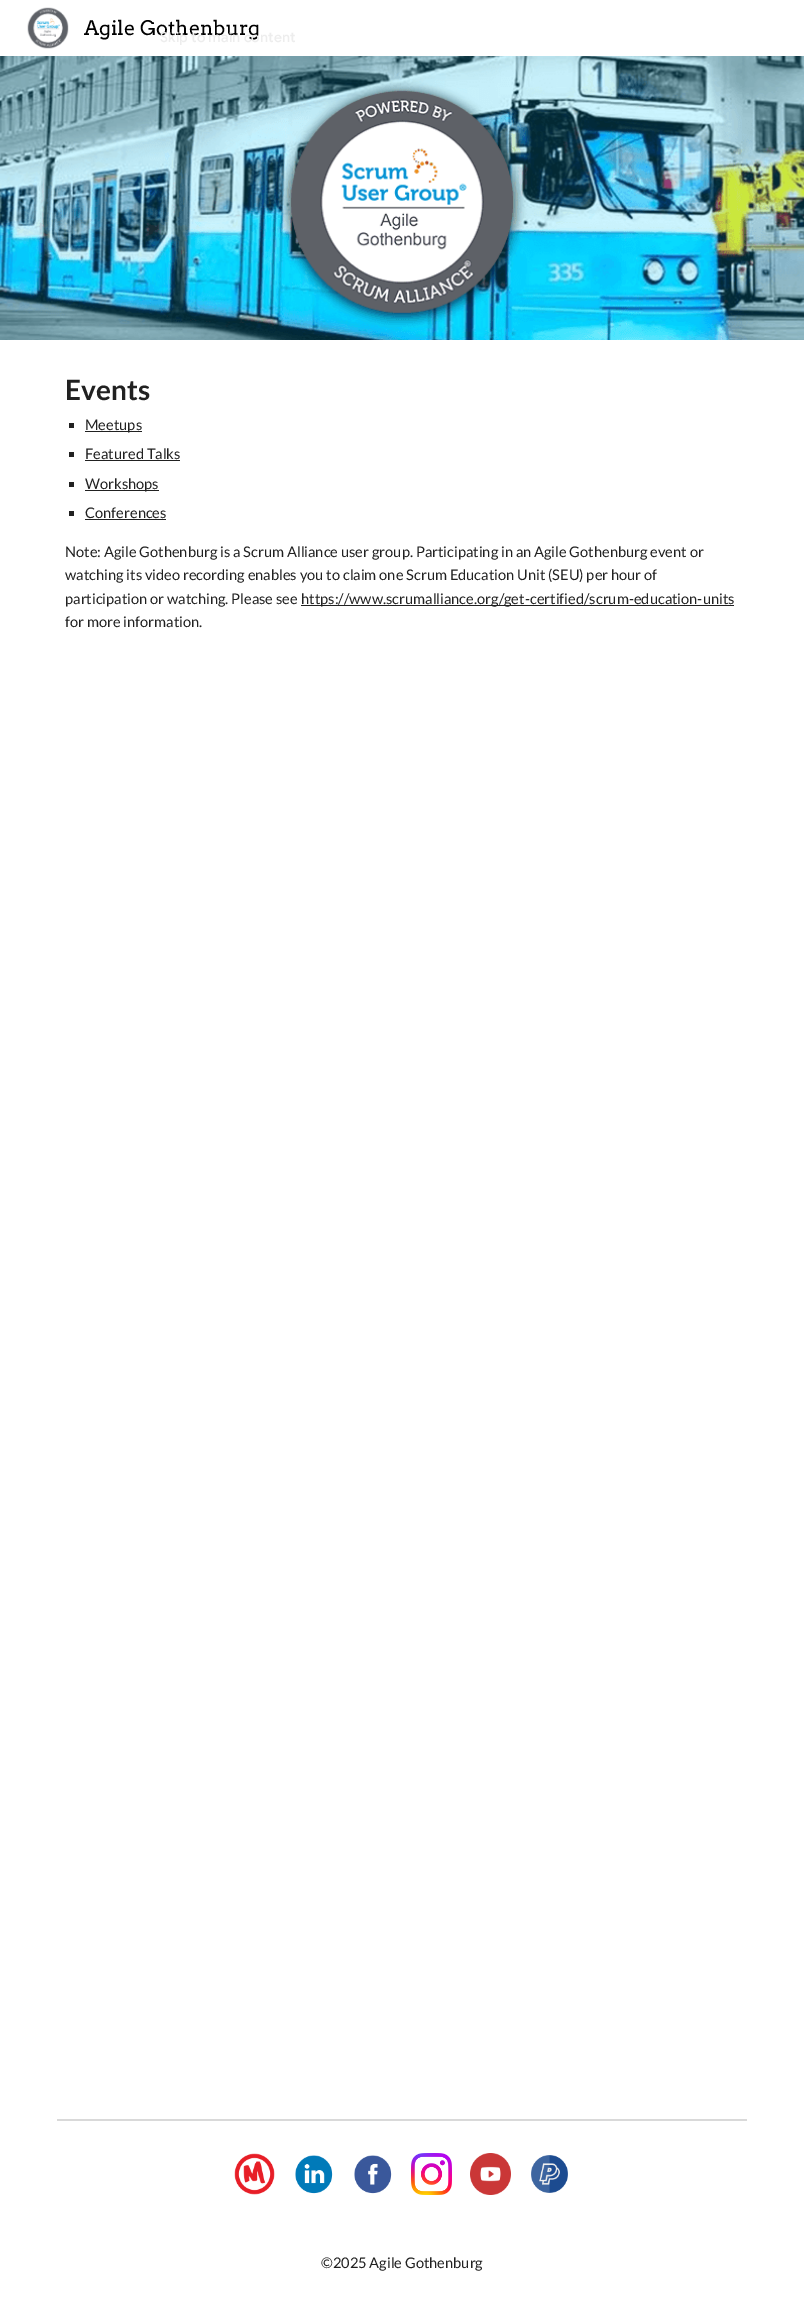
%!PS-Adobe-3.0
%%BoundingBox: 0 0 804 2306
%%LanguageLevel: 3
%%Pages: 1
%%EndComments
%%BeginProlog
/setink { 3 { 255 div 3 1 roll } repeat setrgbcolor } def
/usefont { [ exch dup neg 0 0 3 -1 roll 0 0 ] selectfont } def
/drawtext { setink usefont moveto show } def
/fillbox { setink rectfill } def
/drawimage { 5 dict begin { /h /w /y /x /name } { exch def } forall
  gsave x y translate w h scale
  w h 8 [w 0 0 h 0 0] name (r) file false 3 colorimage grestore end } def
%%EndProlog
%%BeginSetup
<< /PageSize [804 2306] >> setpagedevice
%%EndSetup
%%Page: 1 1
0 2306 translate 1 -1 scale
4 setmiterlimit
0 0 804 2306 255 255 255 fillbox
(assets/img1.rgb) 27 7 42 42 drawimage
(Agile Gothenburg) 84 35 /Arvo-Regular 20 0 0 0 drawtext
(assets/img2.rgb) 0 56 804 284 drawimage
(Events) 65 400 /Lato-Bold 28 33 33 33 drawtext
69 423 5 5 33 33 33 fillbox
85 431 57 1 33 33 33 fillbox
(Meetups) 85 430 /Lato-Regular 14.65 33 33 33 drawtext
69 452 5 5 33 33 33 fillbox
(Featured Talks) 85 459 /Lato-Regular 14.65 33 33 33 drawtext
85 460 95 1 33 33 33 fillbox
69 482 5 5 33 33 33 fillbox
85 490 74 1 33 33 33 fillbox
(Workshops) 85 489 /Lato-Regular 14.65 33 33 33 drawtext
69 511 5 5 33 33 33 fillbox
(Conferences) 85 518 /Lato-Regular 14.65 33 33 33 drawtext
85 519 81 1 33 33 33 fillbox
(Note: Agile Gothenburg is a Scrum Alliance user group. Participating in an Agile Gothenburg event or) 65 557 /Lato-Regular 14.65 33 33 33 drawtext
(watching its video recording enables you to claim one Scrum Education Unit \(SEU\) per hour of) 65 580 /Lato-Regular 14.65 33 33 33 drawtext
(participation or watching. Please see) 65 604 /Lato-Regular 14.65 33 33 33 drawtext
301 605 433 1 33 33 33 fillbox
(https://www.scrumalliance.org/get-certified/scrum-education-units) 301 604 /Lato-Regular 14.65 33 33 33 drawtext
(for more information.) 65 627 /Lato-Regular 14.65 33 33 33 drawtext
57 2119 690 2 217 217 217 fillbox
(assets/img3.rgb) 234 2153 41 42 drawimage
(assets/img4.rgb) 295 2155 38 39 drawimage
(assets/img5.rgb) 354 2155 38 39 drawimage
(assets/img6.rgb) 411 2153 41 42 drawimage
(assets/img7.rgb) 470 2153 41 42 drawimage
(assets/img8.rgb) 531 2155 37 38 drawimage
(©2025 Agile Gothenburg) 321 2268 /Lato-Regular 14.65 33 33 33 drawtext
/GoogleSans-Medium 14 usefont
237 237 237 setink
160 42 moveto 0.1 0 (Skip to main content) ashow
showpage
%%EOF
